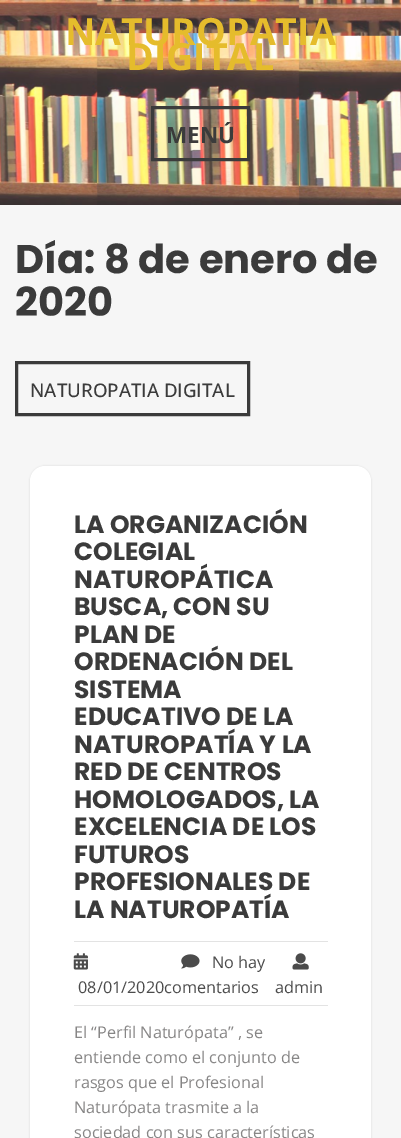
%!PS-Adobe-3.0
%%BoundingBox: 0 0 401 1138
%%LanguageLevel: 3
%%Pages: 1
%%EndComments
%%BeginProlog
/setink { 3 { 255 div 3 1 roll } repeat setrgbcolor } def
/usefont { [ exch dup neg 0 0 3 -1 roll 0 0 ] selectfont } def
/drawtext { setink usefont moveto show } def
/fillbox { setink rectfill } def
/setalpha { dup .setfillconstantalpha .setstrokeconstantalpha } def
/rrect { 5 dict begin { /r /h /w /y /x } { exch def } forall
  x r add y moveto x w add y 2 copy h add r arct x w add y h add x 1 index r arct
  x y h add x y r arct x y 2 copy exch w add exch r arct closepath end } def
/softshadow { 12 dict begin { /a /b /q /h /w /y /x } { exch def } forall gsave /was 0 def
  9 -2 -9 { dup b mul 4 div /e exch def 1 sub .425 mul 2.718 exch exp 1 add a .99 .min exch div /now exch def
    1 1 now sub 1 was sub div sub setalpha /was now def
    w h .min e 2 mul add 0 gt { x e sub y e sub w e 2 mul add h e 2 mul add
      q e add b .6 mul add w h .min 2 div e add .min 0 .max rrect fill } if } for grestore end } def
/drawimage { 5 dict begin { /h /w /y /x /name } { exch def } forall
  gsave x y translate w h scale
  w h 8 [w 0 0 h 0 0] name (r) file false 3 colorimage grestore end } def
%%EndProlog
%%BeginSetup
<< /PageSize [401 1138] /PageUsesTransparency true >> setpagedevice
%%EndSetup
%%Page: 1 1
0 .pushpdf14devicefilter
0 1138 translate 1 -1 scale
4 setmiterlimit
0 0 401 1138 246 246 246 fillbox
(assets/img1.rgb) 0 0 401 205 drawimage
(NATUROPATIA) 65 45 /OpenSans-Bold 37.5 229 188 44 drawtext
(DIGITAL) 126 70 /OpenSans-Bold 37.5 229 188 44 drawtext
59 59 59 setink
3 setlinewidth
152.5 107.5 96 52 rectstroke
(MENÚ) 166 143 /OpenSans-Bold 22.5 59 59 59 drawtext
(Día: 8 de enero de) 15 273 /Poppins-Bold 40 59 59 59 drawtext
(2020) 15 316 /Poppins-Bold 40 59 59 59 drawtext
16.5 362.5 232 52 rectstroke
(NATUROPATIA DIGITAL) 30 397 /OpenSans-Medium 18.75 59 59 59 drawtext
215 215 215 setink
30 466 341 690 15 1 1 softshadow
255 255 255 setink
30 466 341 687 15 rrect fill
(LA ORGANIZACIÓN) 74 533 /Poppins-Bold 25 59 59 59 drawtext
(COLEGIAL) 74 560 /Poppins-Bold 25 59 59 59 drawtext
(NATUROPÁTICA) 74 588 /Poppins-Bold 25 59 59 59 drawtext
(BUSCA, CON SU) 74 615 /Poppins-Bold 25 59 59 59 drawtext
(PLAN DE) 74 643 /Poppins-Bold 25 59 59 59 drawtext
(ORDENACIÓN DEL) 74 670 /Poppins-Bold 25 59 59 59 drawtext
(SISTEMA) 74 698 /Poppins-Bold 25 59 59 59 drawtext
(EDUCATIVO DE LA) 74 725 /Poppins-Bold 25 59 59 59 drawtext
(NATUROPATÍA Y LA) 74 753 /Poppins-Bold 25 59 59 59 drawtext
(RED DE CENTROS) 74 780 /Poppins-Bold 25 59 59 59 drawtext
(HOMOLOGADOS, LA) 74 808 /Poppins-Bold 25 59 59 59 drawtext
(EXCELENCIA DE LOS) 74 835 /Poppins-Bold 25 59 59 59 drawtext
(FUTUROS) 74 863 /Poppins-Bold 25 59 59 59 drawtext
(PROFESIONALES DE) 74 890 /Poppins-Bold 25 59 59 59 drawtext
(LA NATUROPATÍA) 74 918 /Poppins-Bold 25 59 59 59 drawtext
74 941 254 1 227 227 227 fillbox
74 1005 254 1 227 227 227 fillbox
(assets/img2.rgb) 181 954 19 15 drawimage
(No hay) 212 968 /OpenSans-Regular 16.25 75 75 75 drawtext
(assets/img3.rgb) 73 953 15 17 drawimage
(08/01/2020comentarios) 78 993 /OpenSans-Regular 16.25 75 75 75 drawtext
(assets/img4.rgb) 292 953 17 17 drawimage
(admin) 275 993 /OpenSans-Regular 16.25 75 75 75 drawtext
(El “Perfil Naturópata” , se) 74 1038 /OpenSans-Regular 16.25 135 134 134 drawtext
(entiende como el conjunto de) 74 1063 /OpenSans-Regular 16.25 135 134 134 drawtext
(rasgos que el Profesional) 74 1088 /OpenSans-Regular 16.25 135 134 134 drawtext
(Naturópata trasmite a la) 74 1113 /OpenSans-Regular 16.25 135 134 134 drawtext
(sociedad con sus características) 74 1138 /OpenSans-Regular 16.25 135 134 134 drawtext
.poppdf14devicefilter showpage
%%EOF
